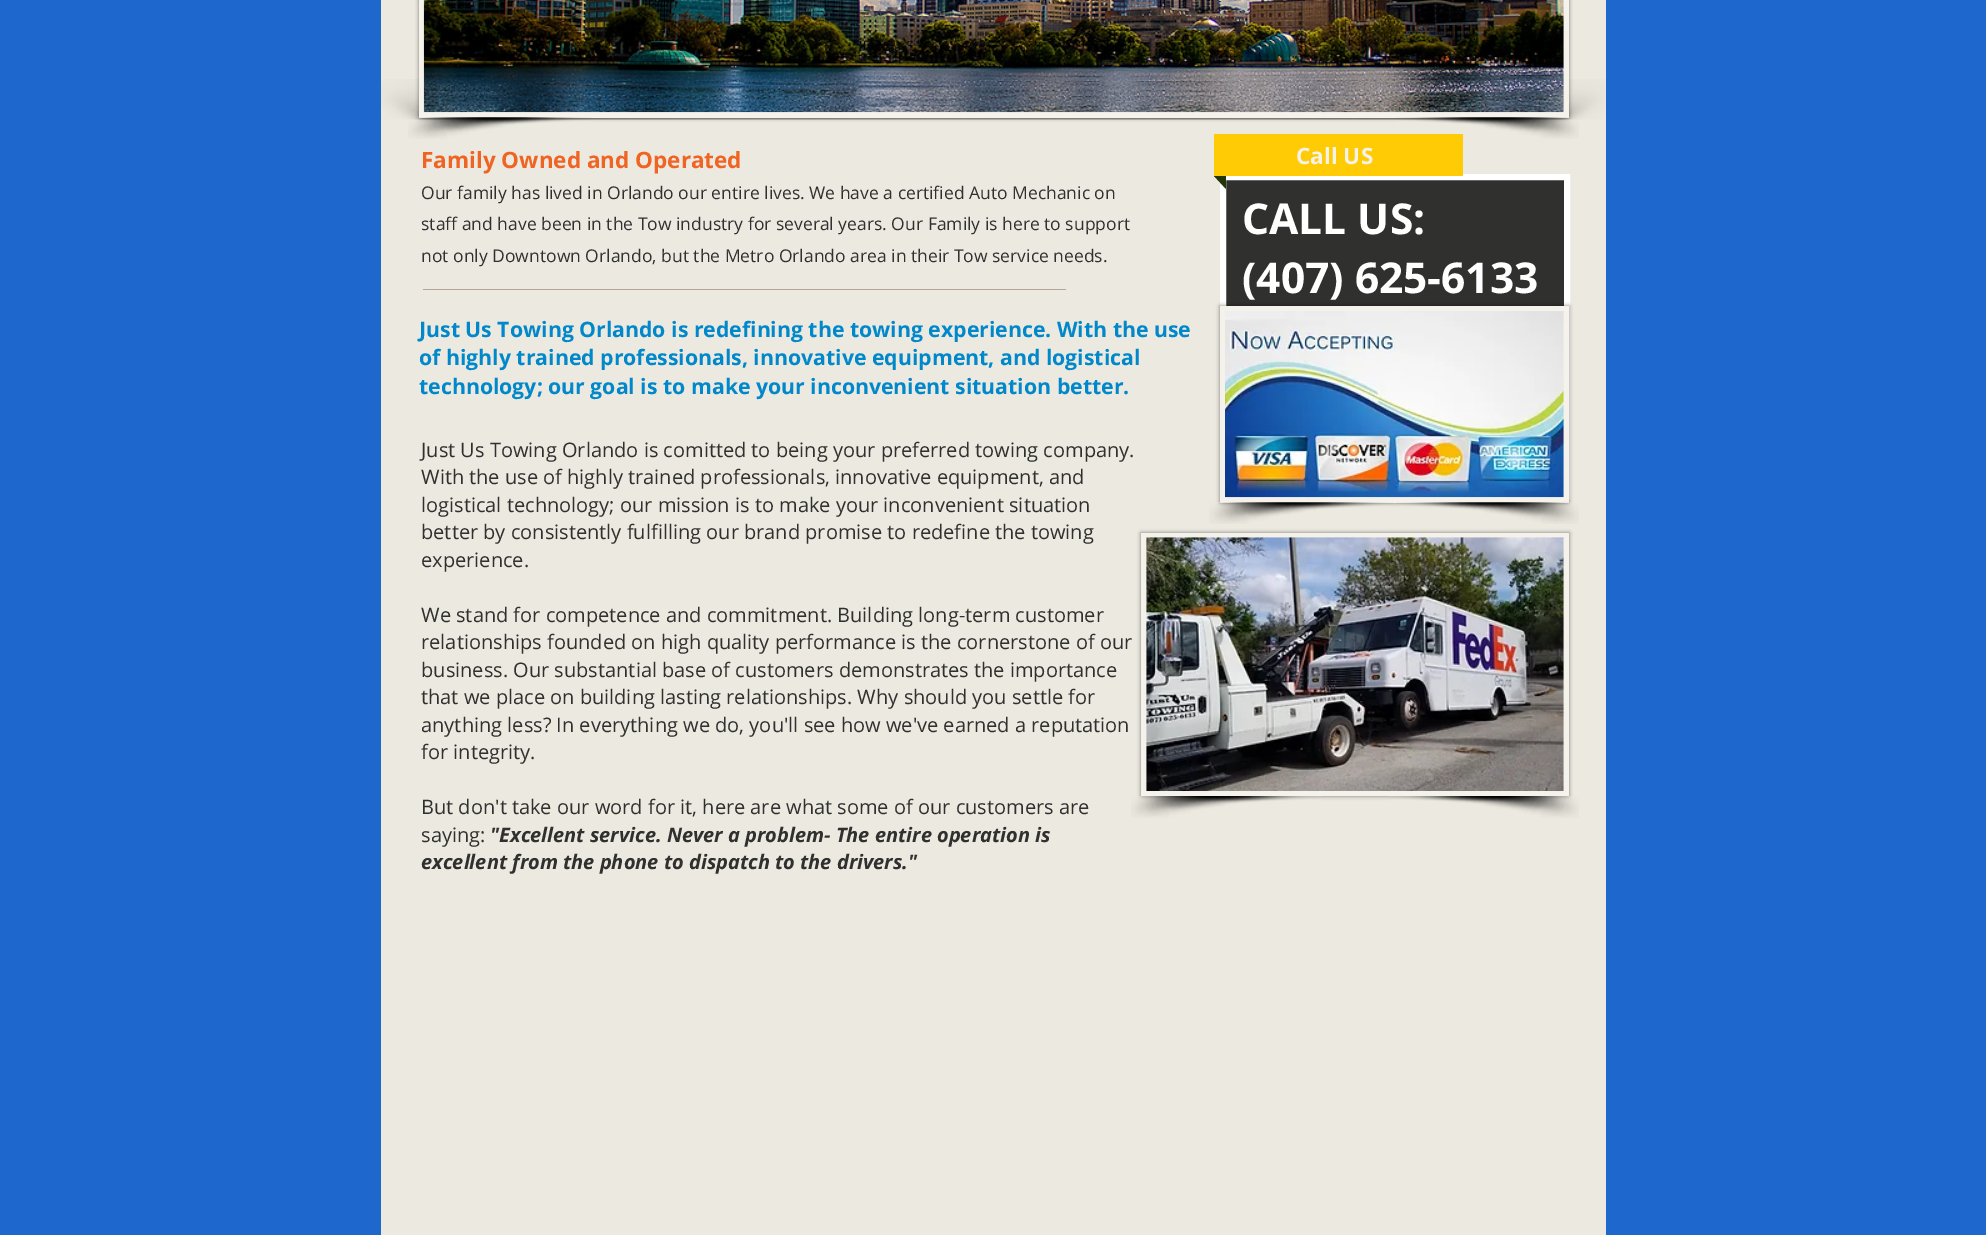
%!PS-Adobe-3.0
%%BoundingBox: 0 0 1986 1235
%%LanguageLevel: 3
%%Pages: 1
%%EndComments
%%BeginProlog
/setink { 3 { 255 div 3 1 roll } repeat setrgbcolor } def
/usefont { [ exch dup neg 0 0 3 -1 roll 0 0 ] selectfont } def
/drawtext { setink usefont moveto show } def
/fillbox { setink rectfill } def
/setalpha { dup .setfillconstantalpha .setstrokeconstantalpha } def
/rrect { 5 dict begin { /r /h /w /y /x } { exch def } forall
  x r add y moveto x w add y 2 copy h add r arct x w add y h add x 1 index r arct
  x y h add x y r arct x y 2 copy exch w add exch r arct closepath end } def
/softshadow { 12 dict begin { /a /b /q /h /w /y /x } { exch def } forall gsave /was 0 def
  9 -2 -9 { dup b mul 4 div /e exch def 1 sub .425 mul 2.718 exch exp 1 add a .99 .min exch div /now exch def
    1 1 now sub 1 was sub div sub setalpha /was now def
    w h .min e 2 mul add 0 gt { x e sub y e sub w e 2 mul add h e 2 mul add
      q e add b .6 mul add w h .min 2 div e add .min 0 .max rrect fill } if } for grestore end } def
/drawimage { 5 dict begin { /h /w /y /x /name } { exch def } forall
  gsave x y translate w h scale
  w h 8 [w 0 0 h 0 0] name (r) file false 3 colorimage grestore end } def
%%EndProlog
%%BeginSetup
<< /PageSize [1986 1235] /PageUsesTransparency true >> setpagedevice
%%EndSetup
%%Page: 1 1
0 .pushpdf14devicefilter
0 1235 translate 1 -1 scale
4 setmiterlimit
0 0 1986 1235 29 103 205 fillbox
381 0 1225 1235 236 233 224 fillbox
(assets/img4.rgb) 381 79 1225 41 drawimage
0 0 0 setink
419 -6 1150 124 0 2 0.5 softshadow
419 0 1150 118 244 242 235 fillbox
(assets/img1.rgb) 423 0 1141 113 drawimage
(assets/img2.rgb) 408 117 184 22 drawimage
(assets/img3.rgb) 1396 117 183 22 drawimage
(Family Owned and Operated) 421 168 /OpenSans-Bold 22.5 239 100 35 drawtext
(Our family has lived in Orlando our entire lives. We have a certified Auto Mechanic on) 421 199 /OpenSans-Regular 17.5 48 48 47 drawtext
(staff and have been in the Tow industry for several years. Our Family is here to support) 421 230 /OpenSans-Regular 17.5 48 48 47 drawtext
(not only Downtown Orlando, but the Metro Orlando area in their Tow service needs.) 421 262 /OpenSans-Regular 17.5 48 48 47 drawtext
1226 180 338 126 48 48 47 fillbox
255 255 255 setink
6 setlinewidth
1223 177 344 319 rectstroke
1214 134 249 42 255 203 5 fillbox
(Call US) 1296 164 /OpenSans-Bold 22.5 244 242 235 drawtext
35 54 7 setink
1214 176 moveto 1226 176 lineto 1226 189 lineto closepath fill
423 289 643 1 181 163 149 fillbox
(CALL US:) 1242 234 /OpenSans-Bold 42.5 255 255 255 drawtext
(\(407\) 625-6133) 1242 293 /OpenSans-Bold 42.5 255 255 255 drawtext
0 0 0 setink
1220 306 349 197 0 2 0.5 softshadow
1220 306 349 197 244 242 235 fillbox
(assets/img5.rgb) 1225 311 339 187 drawimage
(assets/img6.rgb) 1209 502 184 22 drawimage
(assets/img7.rgb) 1396 502 183 22 drawimage
(Just Us Towing Orlando is redefining the towing experience. With the use) 419 337 /OpenSans-Bold 21.25 0 136 203 drawtext
(of highly trained professionals, innovative equipment, and logistical) 419 365 /OpenSans-Bold 21.25 0 136 203 drawtext
(technology; our goal is to make your inconvenient situation better.) 419 394 /OpenSans-Bold 21.25 0 136 203 drawtext
(Just Us Towing Orlando is comitted to being your preferred towing company.) 421 457 /OpenSans-Regular 20 48 48 47 drawtext
(With the use of highly trained professionals, innovative equipment, and) 421 484 /OpenSans-Regular 20 48 48 47 drawtext
(logistical technology; our mission is to make your inconvenient situation) 421 512 /OpenSans-Regular 20 48 48 47 drawtext
(better by consistently fulfilling our brand promise to redefine the towing) 421 539 /OpenSans-Regular 20 48 48 47 drawtext
(experience.) 421 567 /OpenSans-Regular 20 48 48 47 drawtext
(We stand for competence and commitment. Building long-term customer) 421 622 /OpenSans-Regular 20 48 48 47 drawtext
(relationships founded on high quality performance is the cornerstone of our) 421 649 /OpenSans-Regular 20 48 48 47 drawtext
(business. Our substantial base of customers demonstrates the importance) 421 677 /OpenSans-Regular 20 48 48 47 drawtext
(that we place on building lasting relationships. Why should you settle for) 421 704 /OpenSans-Regular 20 48 48 47 drawtext
(anything less? In everything we do, you'll see how we've earned a reputation) 421 732 /OpenSans-Regular 20 48 48 47 drawtext
(for integrity.) 421 759 /OpenSans-Regular 20 48 48 47 drawtext
(But don't take our word for it, here are what some of our customers are) 421 814 /OpenSans-Regular 20 48 48 47 drawtext
(saying:) 421 842 /OpenSans-Regular 20 48 48 47 drawtext
("Excellent service. Never a problem- The entire operation is) 490 842 /OpenSans-BoldItalic 20 48 48 47 drawtext
(excellent from the phone to dispatch to the drivers.") 421 869 /OpenSans-BoldItalic 20 48 48 47 drawtext
0 0 0 setink
1141 533 428 263 0 2 0.5 softshadow
1141 533 428 263 244 242 235 fillbox
(assets/img8.rgb) 1146 537 418 254 drawimage
(assets/img9.rgb) 1131 796 191 22 drawimage
(assets/img10.rgb) 1388 796 191 22 drawimage
.poppdf14devicefilter showpage
%%EOF
